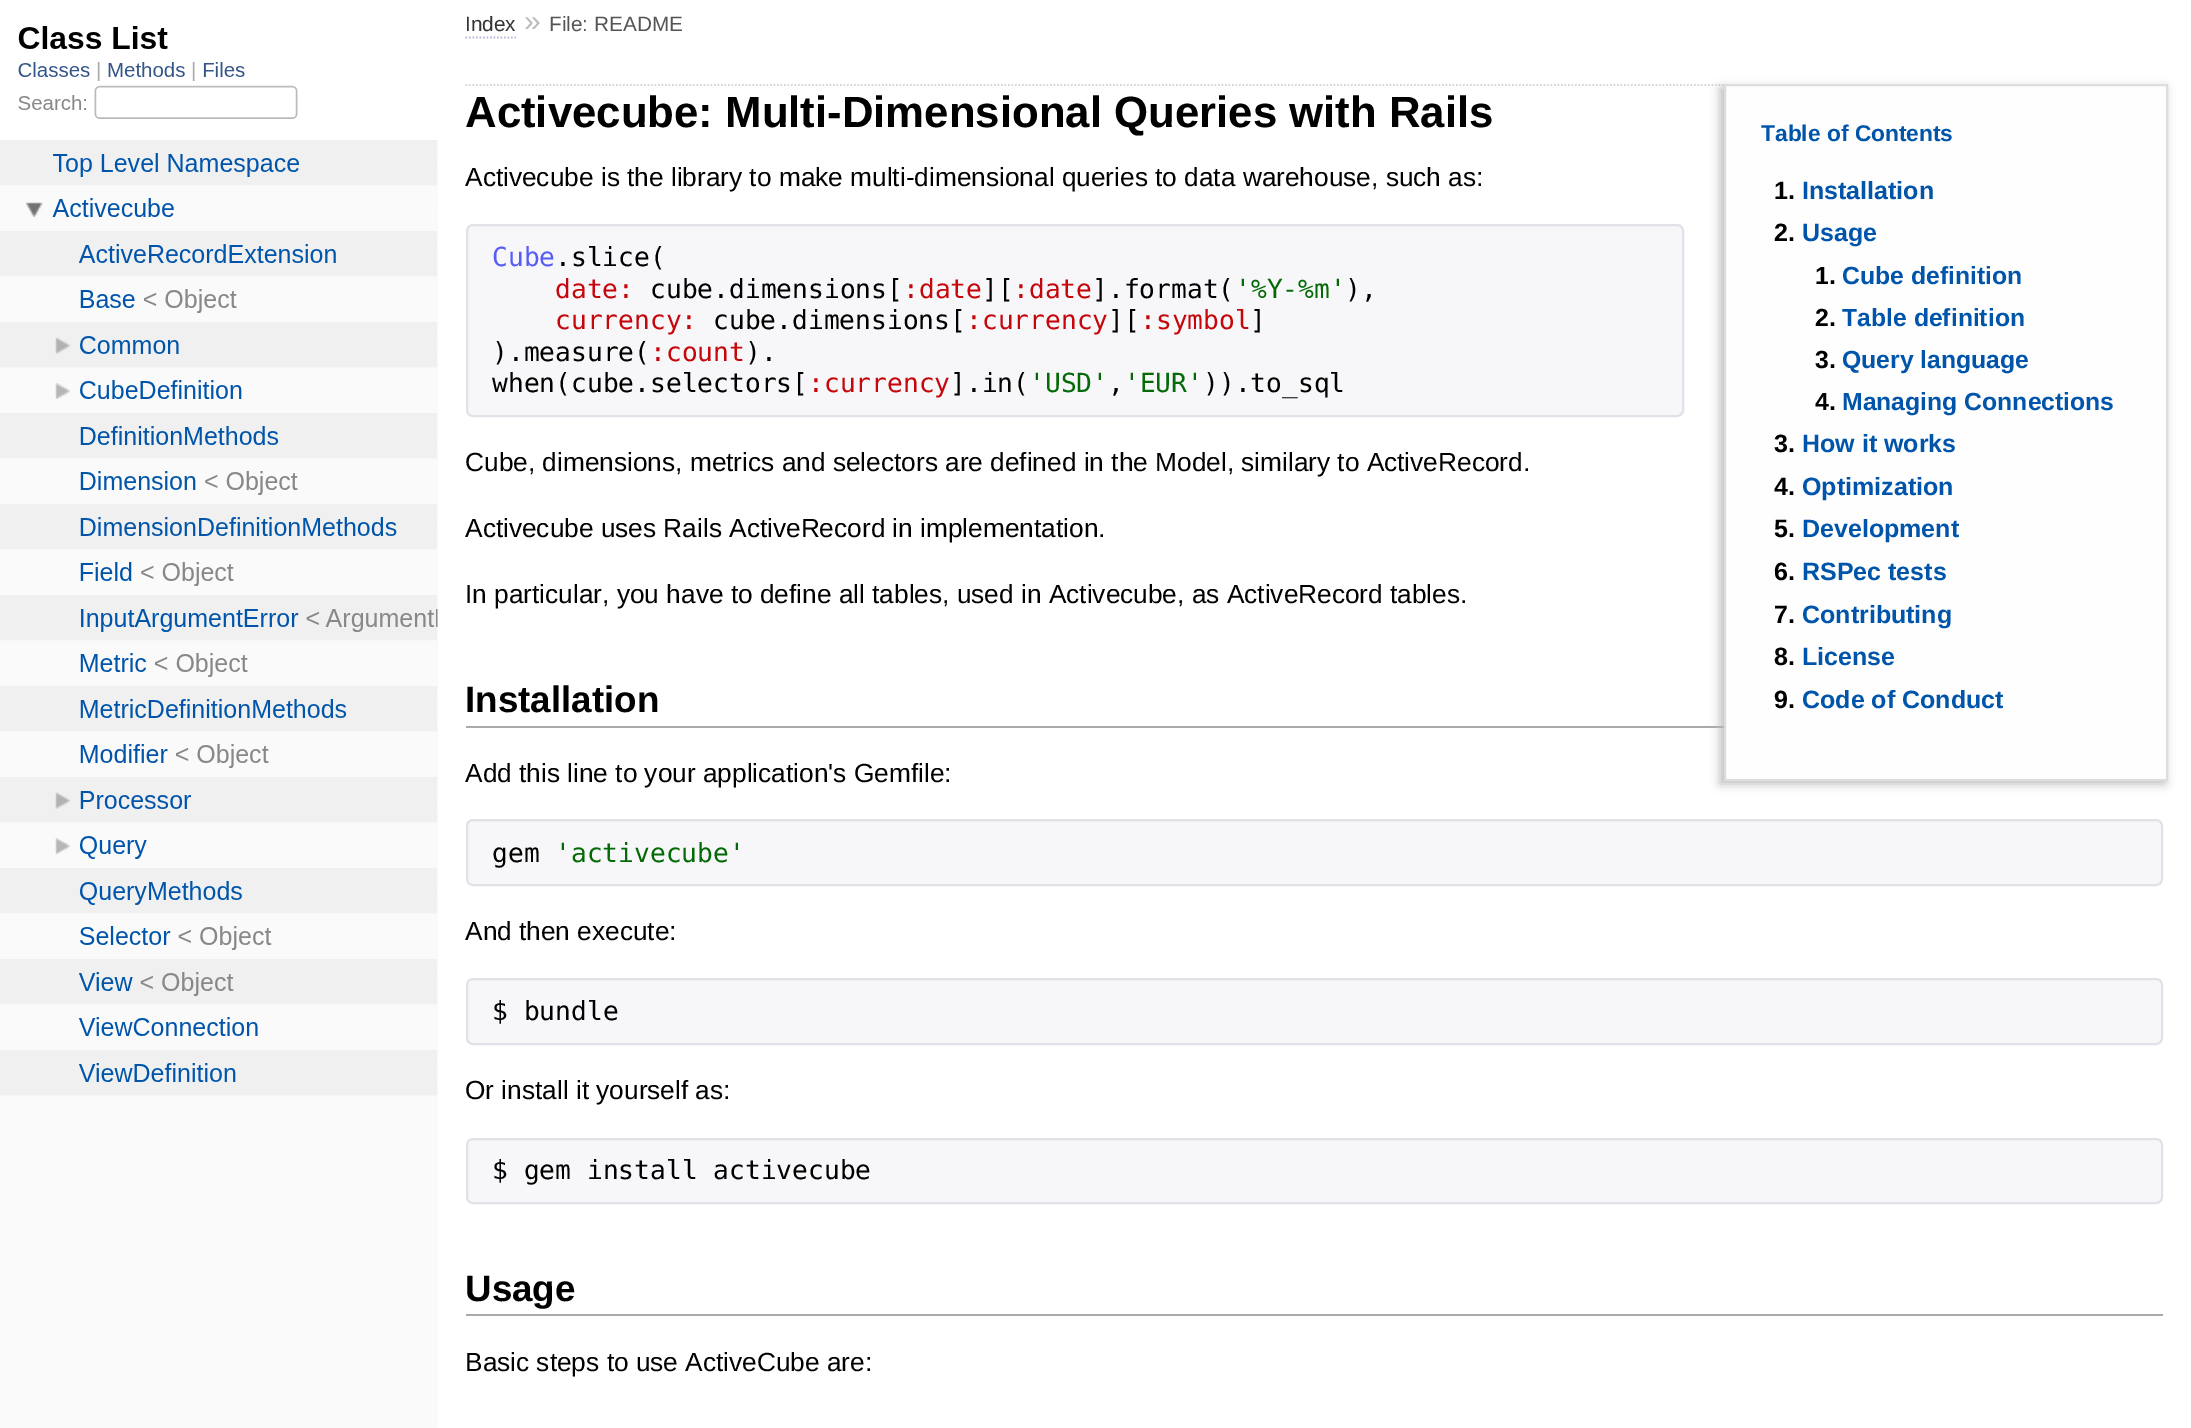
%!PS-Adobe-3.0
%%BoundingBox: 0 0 2191 1428
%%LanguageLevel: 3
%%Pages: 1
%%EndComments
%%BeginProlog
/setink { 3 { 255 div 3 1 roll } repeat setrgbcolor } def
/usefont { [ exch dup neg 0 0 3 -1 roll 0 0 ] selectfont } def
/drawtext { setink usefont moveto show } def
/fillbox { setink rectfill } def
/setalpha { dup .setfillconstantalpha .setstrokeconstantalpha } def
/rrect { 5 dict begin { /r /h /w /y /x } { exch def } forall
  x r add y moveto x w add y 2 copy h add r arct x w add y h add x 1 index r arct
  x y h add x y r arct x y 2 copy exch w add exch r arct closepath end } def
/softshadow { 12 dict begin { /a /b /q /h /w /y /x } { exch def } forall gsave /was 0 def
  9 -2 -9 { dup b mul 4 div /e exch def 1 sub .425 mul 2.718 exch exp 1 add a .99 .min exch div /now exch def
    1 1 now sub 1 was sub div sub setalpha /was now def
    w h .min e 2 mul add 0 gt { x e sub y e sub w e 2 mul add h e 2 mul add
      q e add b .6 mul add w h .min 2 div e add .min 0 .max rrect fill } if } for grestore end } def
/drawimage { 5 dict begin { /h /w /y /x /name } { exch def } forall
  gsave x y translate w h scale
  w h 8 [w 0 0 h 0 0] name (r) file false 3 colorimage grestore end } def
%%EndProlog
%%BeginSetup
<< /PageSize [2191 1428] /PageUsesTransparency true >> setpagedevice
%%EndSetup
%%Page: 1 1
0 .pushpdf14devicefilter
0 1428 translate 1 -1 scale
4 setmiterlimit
0 0 2191 1428 255 255 255 fillbox
238 238 238 setink
1.8 setlinewidth
[1.75 1.75] 0 setdash
438.5 0 moveto 438.5 1428 lineto stroke
(assets/img1.rgb) 0 0 438 1428 drawimage
438 0 2 1427 255 255 255 fillbox
(Index) 465 31 /LiberationSans-Regular 20.75 51 51 51 drawtext
187 187 221 setink
465.5 37.5 moveto 516 37.5 lineto stroke
(») 524 31 /LiberationSans-Regular 30 187 187 187 drawtext
(File: README) 549 31 /LiberationSans-Regular 20.75 85 85 85 drawtext
213 213 213 setink
465.5 85 moveto 2163 85 lineto stroke
(Activecube: Multi-Dimensional Queries with Rails) 465 127 /LiberationSans-Bold 43.75 0 0 0 drawtext
(Activecube is the library to make multi-dimensional queries to data warehouse, such as:) 465 186 /LiberationSans-Regular 26.25 0 0 0 drawtext
247 247 249 setink
467 225 1216 191 6 rrect gsave fill grestore
225 225 232 setink
2 setlinewidth
[] 0 setdash
stroke
(Cube) 492 266 /DejaVuSansMono-Regular 26.25 88 92 246 drawtext
(.slice\() 555 266 /DejaVuSansMono-Regular 26.25 0 0 0 drawtext
(date:) 555 298 /DejaVuSansMono-Regular 26.25 197 6 11 drawtext
(cube.dimensions[) 650 298 /DejaVuSansMono-Regular 26.25 0 0 0 drawtext
(:date) 903 298 /DejaVuSansMono-Regular 26.25 197 6 11 drawtext
(][) 982 298 /DejaVuSansMono-Regular 26.25 0 0 0 drawtext
(:date) 1013 298 /DejaVuSansMono-Regular 26.25 197 6 11 drawtext
(].format\() 1092 298 /DejaVuSansMono-Regular 26.25 0 0 0 drawtext
('%Y-%m') 1235 298 /DejaVuSansMono-Regular 26.25 3 106 7 drawtext
(\),) 1345 298 /DejaVuSansMono-Regular 26.25 0 0 0 drawtext
(currency:) 555 329 /DejaVuSansMono-Regular 26.25 197 6 11 drawtext
(cube.dimensions[) 713 329 /DejaVuSansMono-Regular 26.25 0 0 0 drawtext
(:currency) 966 329 /DejaVuSansMono-Regular 26.25 197 6 11 drawtext
(][) 1108 329 /DejaVuSansMono-Regular 26.25 0 0 0 drawtext
(:symbol) 1140 329 /DejaVuSansMono-Regular 26.25 197 6 11 drawtext
(]) 1250 329 /DejaVuSansMono-Regular 26.25 0 0 0 drawtext
(\).measure\() 492 361 /DejaVuSansMono-Regular 26.25 0 0 0 drawtext
(:count) 650 361 /DejaVuSansMono-Regular 26.25 197 6 11 drawtext
(\).) 745 361 /DejaVuSansMono-Regular 26.25 0 0 0 drawtext
(when\(cube.selectors[) 492 392 /DejaVuSansMono-Regular 26.25 0 0 0 drawtext
(:currency) 808 392 /DejaVuSansMono-Regular 26.25 197 6 11 drawtext
(].in\() 950 392 /DejaVuSansMono-Regular 26.25 0 0 0 drawtext
('USD' 'EUR') 1029 392 /DejaVuSansMono-Regular 26.25 3 106 7 drawtext
(\)\).to_sql) 1203 392 /DejaVuSansMono-Regular 26.25 0 0 0 drawtext
(,) 1108 392 /DejaVuSansMono-Regular 26.25 0 0 0 drawtext
(Cube, dimensions, metrics and selectors are defined in the Model, similary to ActiveRecord.) 465 471 /LiberationSans-Regular 26.25 0 0 0 drawtext
(Activecube uses Rails ActiveRecord in implementation.) 465 537 /LiberationSans-Regular 26.25 0 0 0 drawtext
(In particular, you have to define all tables, used in Activecube, as ActiveRecord tables.) 465 603 /LiberationSans-Regular 26.25 0 0 0 drawtext
466 726 1258 2 170 170 170 fillbox
(Installation) 465 712 /LiberationSans-Bold 36.75 0 0 0 drawtext
(Add this line to your application's Gemfile:) 465 782 /LiberationSans-Regular 26.25 0 0 0 drawtext
247 247 249 setink
467 820 1695 65 6 rrect gsave fill grestore
225 225 232 setink
stroke
(gem) 492 862 /DejaVuSansMono-Regular 26.25 0 0 0 drawtext
('activecube') 555 862 /DejaVuSansMono-Regular 26.25 3 106 7 drawtext
(And then execute:) 465 940 /LiberationSans-Regular 26.25 0 0 0 drawtext
247 247 249 setink
467 979 1695 65 6 rrect gsave fill grestore
225 225 232 setink
stroke
($ bundle) 492 1020 /DejaVuSansMono-Regular 26.25 0 0 0 drawtext
(Or install it yourself as:) 465 1099 /LiberationSans-Regular 26.25 0 0 0 drawtext
247 247 249 setink
467 1139 1695 64 6 rrect gsave fill grestore
225 225 232 setink
stroke
($ gem install activecube) 492 1179 /DejaVuSansMono-Regular 26.25 0 0 0 drawtext
466 1314 1697 2 170 170 170 fillbox
(Usage) 465 1301 /LiberationSans-Bold 36.75 0 0 0 drawtext
(Basic steps to use ActiveCube are:) 465 1371 /LiberationSans-Regular 26.25 0 0 0 drawtext
187 187 187 setink
1720 88 445 696 0 5 1 softshadow
254 254 254 setink
1725 85 moveto 2167 85 lineto 2167 780 lineto 1725 780 lineto closepath gsave fill grestore
221 221 221 setink
stroke
(Table of Contents) 1761 141 /LiberationSans-Bold 22.75 0 85 170 drawtext
(1.) 1774 199 /LiberationSans-Bold 25 0 0 0 drawtext
(Installation) 1802 199 /LiberationSans-Bold 25 0 85 170 drawtext
(2.) 1774 241 /LiberationSans-Bold 25 0 0 0 drawtext
(Usage) 1802 241 /LiberationSans-Bold 25 0 85 170 drawtext
(1.) 1815 284 /LiberationSans-Bold 24.75 0 0 0 drawtext
(Cube definition) 1842 284 /LiberationSans-Bold 24.75 0 85 170 drawtext
(2.) 1815 326 /LiberationSans-Bold 24.75 0 0 0 drawtext
(Table definition) 1842 326 /LiberationSans-Bold 24.75 0 85 170 drawtext
(3.) 1815 368 /LiberationSans-Bold 24.75 0 0 0 drawtext
(Query language) 1842 368 /LiberationSans-Bold 24.75 0 85 170 drawtext
(4.) 1815 410 /LiberationSans-Bold 24.75 0 0 0 drawtext
(Managing Connections) 1842 410 /LiberationSans-Bold 24.75 0 85 170 drawtext
(3.) 1774 452 /LiberationSans-Bold 25 0 0 0 drawtext
(How it works) 1802 452 /LiberationSans-Bold 25 0 85 170 drawtext
(4.) 1774 495 /LiberationSans-Bold 25 0 0 0 drawtext
(Optimization) 1802 495 /LiberationSans-Bold 25 0 85 170 drawtext
(5.) 1774 537 /LiberationSans-Bold 25 0 0 0 drawtext
(Development) 1802 537 /LiberationSans-Bold 25 0 85 170 drawtext
(6.) 1774 580 /LiberationSans-Bold 25 0 0 0 drawtext
(RSPec tests) 1802 580 /LiberationSans-Bold 25 0 85 170 drawtext
(7.) 1774 623 /LiberationSans-Bold 25 0 0 0 drawtext
(Contributing) 1802 623 /LiberationSans-Bold 25 0 85 170 drawtext
(8.) 1774 665 /LiberationSans-Bold 25 0 0 0 drawtext
(License) 1802 665 /LiberationSans-Bold 25 0 85 170 drawtext
(9.) 1774 708 /LiberationSans-Bold 25 0 0 0 drawtext
(Code of Conduct) 1802 708 /LiberationSans-Bold 25 0 85 170 drawtext
.poppdf14devicefilter showpage
%%EOF
